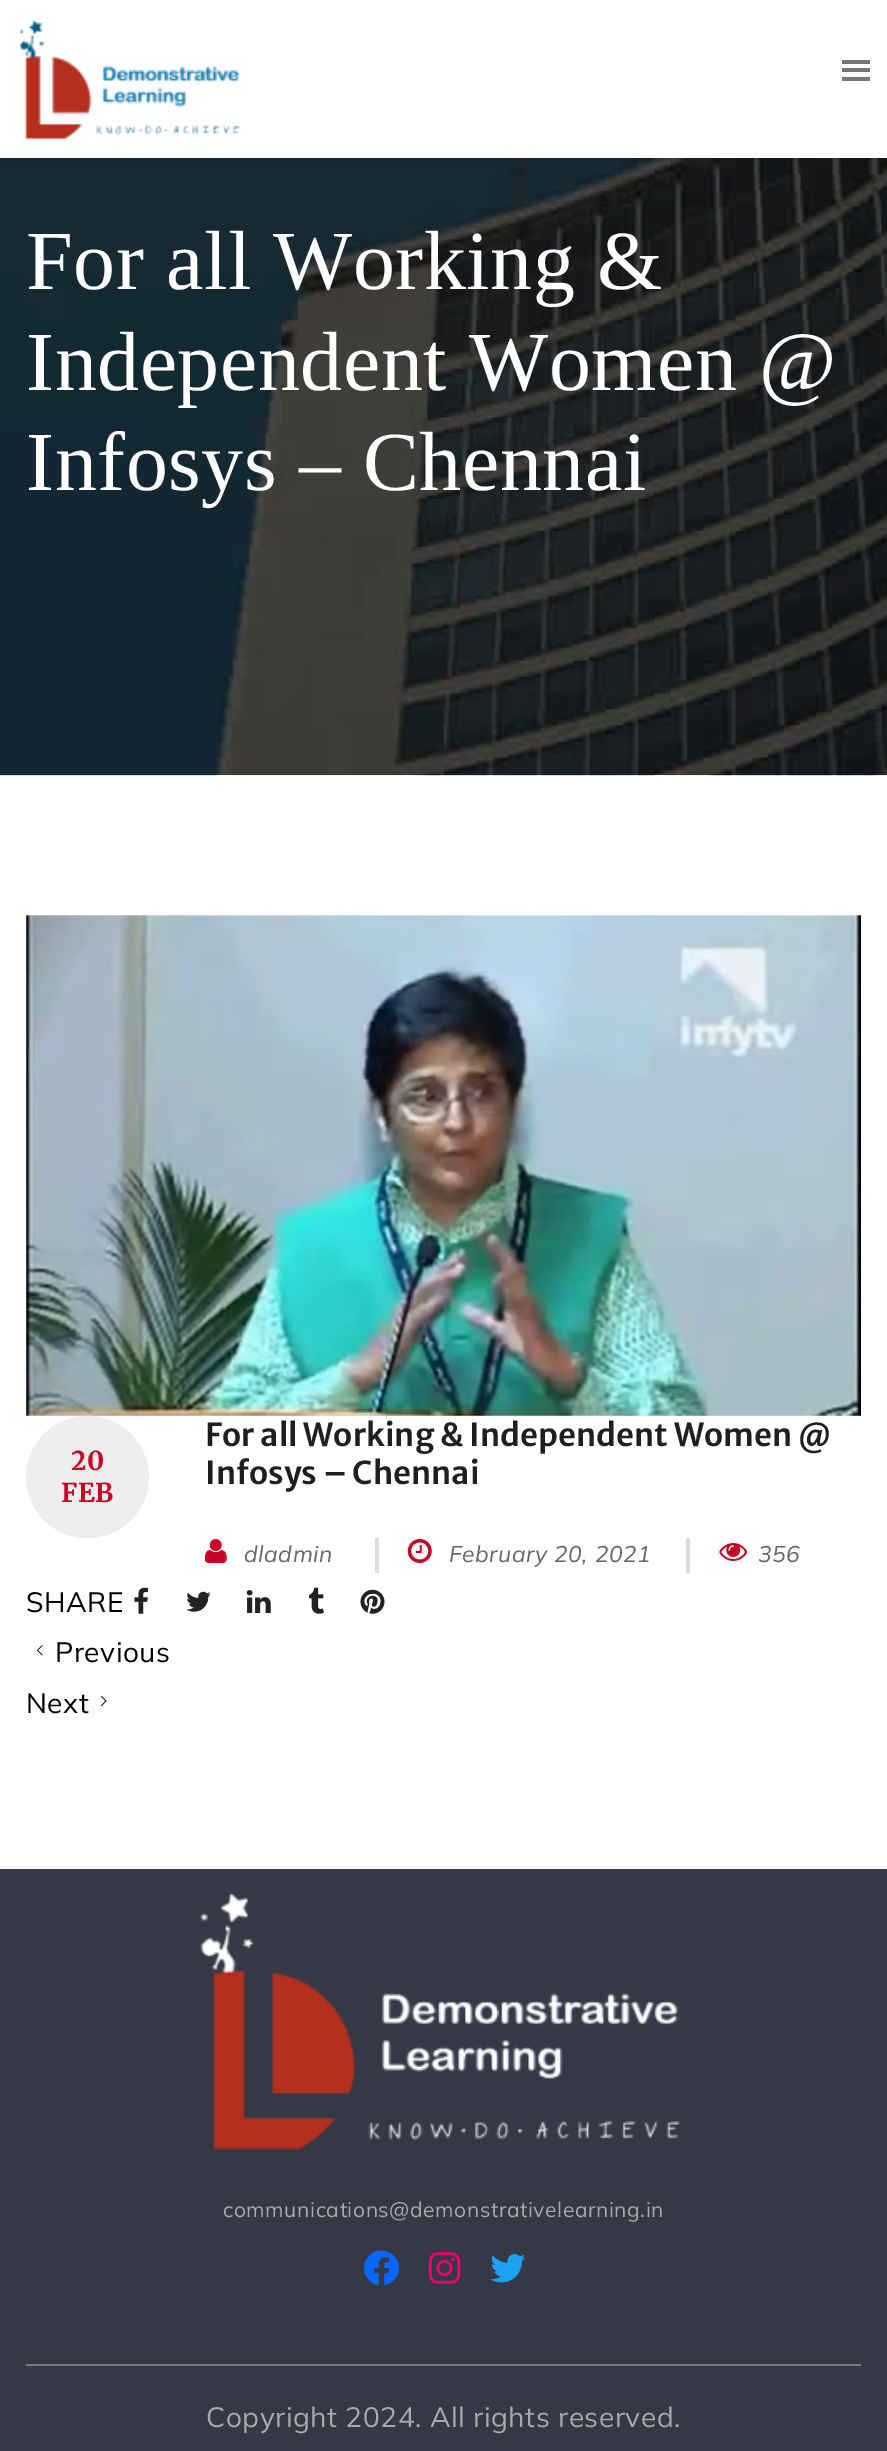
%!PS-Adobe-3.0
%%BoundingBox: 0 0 887 2451
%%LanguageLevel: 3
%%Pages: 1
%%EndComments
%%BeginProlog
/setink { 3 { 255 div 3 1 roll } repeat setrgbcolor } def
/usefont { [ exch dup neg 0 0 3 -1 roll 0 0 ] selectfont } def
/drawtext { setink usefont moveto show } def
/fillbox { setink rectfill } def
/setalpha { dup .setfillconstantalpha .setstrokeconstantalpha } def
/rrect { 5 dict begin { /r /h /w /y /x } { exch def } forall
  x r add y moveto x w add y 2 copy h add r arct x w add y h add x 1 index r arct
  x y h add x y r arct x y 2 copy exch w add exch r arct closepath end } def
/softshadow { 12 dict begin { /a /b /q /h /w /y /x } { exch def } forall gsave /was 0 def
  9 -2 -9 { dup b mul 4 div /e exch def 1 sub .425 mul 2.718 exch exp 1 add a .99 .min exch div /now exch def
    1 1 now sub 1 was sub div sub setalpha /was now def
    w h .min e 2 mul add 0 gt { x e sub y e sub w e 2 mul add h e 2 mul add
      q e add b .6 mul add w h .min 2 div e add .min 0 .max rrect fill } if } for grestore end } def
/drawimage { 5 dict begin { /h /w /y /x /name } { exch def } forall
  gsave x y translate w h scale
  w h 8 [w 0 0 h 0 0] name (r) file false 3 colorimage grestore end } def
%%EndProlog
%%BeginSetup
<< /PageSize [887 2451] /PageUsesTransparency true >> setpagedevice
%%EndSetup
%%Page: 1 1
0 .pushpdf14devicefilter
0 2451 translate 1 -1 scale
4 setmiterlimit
0 0 887 2451 255 255 255 fillbox
(assets/img2.rgb) 0 158 887 618 drawimage
0 0 0 setink
-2 -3 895 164 0 2.5 0.1 softshadow
0 0 887 158 255 255 255 fillbox
(assets/img1.rgb) 19 20 222 121 drawimage
842 68 28 4 119 119 119 fillbox
842 60 28 4 119 119 119 fillbox
842 77 28 4 119 119 119 fillbox
/LiberationSerif-Regular 84 usefont
255 255 255 setink
26 289 moveto 0.55 0 (For all Working &) ashow
26 390 moveto 0.55 0 (Independent Women @) ashow
26 490 moveto 0.55 0 (Infosys – Chennai) ashow
(assets/img3.rgb) 26 915 835 501 drawimage
238 238 238 setink
26 1416 123 122 61 rrect fill
/Merriweather-Bold 26 usefont
198 3 37 setink
71 1470 moveto 0.55 0 (20) ashow
61 1502 moveto 0.55 0 (FEB) ashow
(For all Working & Independent Women @) 205 1446 /MerriweatherSans-SemiBold 31.5 31 31 31 drawtext
(Infosys – Chennai) 205 1484 /MerriweatherSans-SemiBold 31.5 31 31 31 drawtext
(assets/img4.rgb) 205 1539 22 24 drawimage
/Mulish-Italic 22.75 usefont
102 102 102 setink
244 1562 moveto 0.55 0 (dladmin) ashow
375 1538 4 35 221 221 221 fillbox
(assets/img5.rgb) 407 1539 25 24 drawimage
102 102 102 setink
449 1562 moveto 0.55 0 (February 20, 2021) ashow
686 1538 4 35 221 221 221 fillbox
(assets/img6.rgb) 719 1543 29 18 drawimage
102 102 102 setink
758 1562 moveto 0.55 0 (356) ashow
/Mulish-Regular 28 usefont
0 0 0 setink
26 1612 moveto 0.55 0 (SHARE) ashow
(assets/img7.rgb) 134 1587 14 27 drawimage
(assets/img8.rgb) 186 1591 25 21 drawimage
(assets/img9.rgb) 246 1590 25 23 drawimage
(assets/img10.rgb) 309 1587 15 27 drawimage
(assets/img11.rgb) 360 1589 25 25 drawimage
(assets/img12.rgb) 36 1645 7 11 drawimage
55 1662 moveto 0.55 0 (Previous) ashow
26 1713 moveto 0.55 0 (Next) ashow
(assets/img13.rgb) 100 1695 7 12 drawimage
0 1869 887 582 52 57 69 fillbox
(assets/img14.rgb) 199 1892 482 259 drawimage
/Mulish-Regular 21 usefont
170 170 170 setink
223 2217 moveto 0.55 0 (communications@demonstrativelearning.in) ashow
(assets/img15.rgb) 364 2250 35 36 drawimage
(assets/img16.rgb) 428 2252 33 32 drawimage
(assets/img17.rgb) 490 2254 36 29 drawimage
26 2364 835 2 123 123 123 fillbox
/Mulish-Regular 28 usefont
170 170 170 setink
206 2427 moveto 0.55 0 (Copyright 2024. All rights reserved.) ashow
.poppdf14devicefilter showpage
%%EOF
